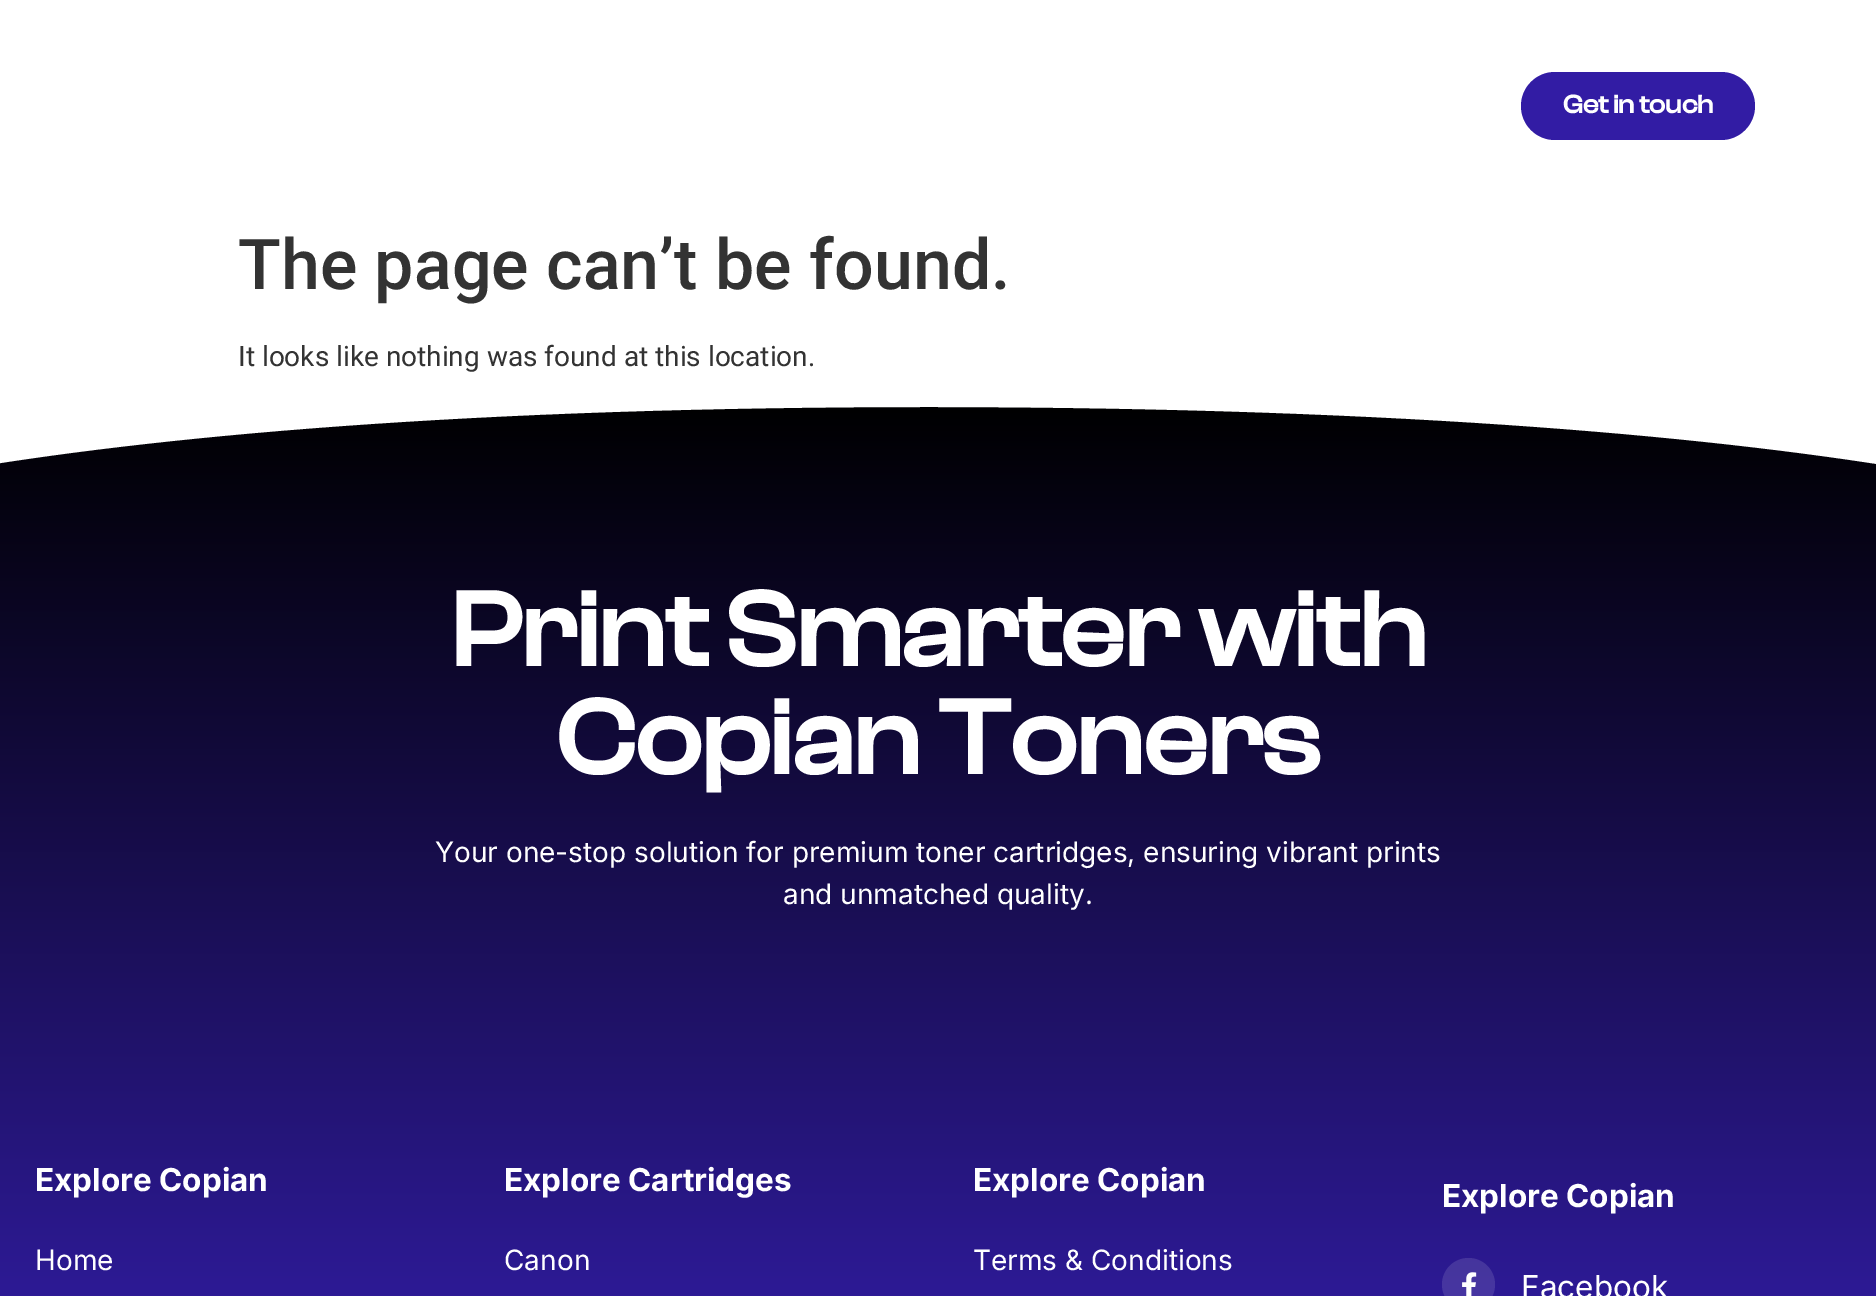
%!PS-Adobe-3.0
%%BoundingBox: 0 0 1876 1296
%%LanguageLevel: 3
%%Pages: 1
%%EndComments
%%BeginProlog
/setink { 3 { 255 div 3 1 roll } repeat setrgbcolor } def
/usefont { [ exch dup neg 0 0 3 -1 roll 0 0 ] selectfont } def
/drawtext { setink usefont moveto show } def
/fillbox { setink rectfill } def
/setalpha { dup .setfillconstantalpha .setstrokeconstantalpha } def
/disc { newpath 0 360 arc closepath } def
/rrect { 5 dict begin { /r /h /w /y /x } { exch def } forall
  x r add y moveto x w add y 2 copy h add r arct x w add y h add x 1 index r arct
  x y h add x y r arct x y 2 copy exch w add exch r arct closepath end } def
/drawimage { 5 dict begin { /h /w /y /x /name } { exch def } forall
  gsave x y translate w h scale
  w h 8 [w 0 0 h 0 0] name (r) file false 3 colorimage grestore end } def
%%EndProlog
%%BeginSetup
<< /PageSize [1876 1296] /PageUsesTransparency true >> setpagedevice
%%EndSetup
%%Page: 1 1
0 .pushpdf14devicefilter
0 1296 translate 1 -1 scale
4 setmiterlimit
0 0 1876 1296 255 255 255 fillbox
50 28 164 setink
1521 72 234 68 34 rrect fill
(Get in touch) 1563 113 /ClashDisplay-Bold 26.25 255 255 255 drawtext
(The page can’t be found.) 238 289 /Roboto-Medium 70 51 51 51 drawtext
(It looks like nothing was found at this location.) 238 366 /Roboto-Regular 28 51 51 51 drawtext
gsave 0 407 moveto 1876 407 lineto 1876 1296 lineto 0 1296 lineto closepath clip newpath
<< /ShadingType 2 /ColorSpace /DeviceRGB /Coords [938 402 938 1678] /Extend [true true] /Function << /FunctionType 3 /Domain [0 1] /Functions [<< /FunctionType 2 /Domain [0 1] /C0 [0 0 0] /C1 [0.196 0.11 0.643] /N 1 >> << /FunctionType 2 /Domain [0 1] /C0 [0.196 0.11 0.643] /C1 [0.196 0.11 0.643] /N 1 >>] /Bounds [0.77] /Encode [0 1 0 1] >> >> shfill grestore
255 255 255 setink
938 407 moveto 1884 408 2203 528 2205 560 curveto 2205 402 lineto -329 402 lineto -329 558 lineto -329 529 -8 406 938 407 curveto closepath fill
(Print Smarter with) 451 666 /ClashDisplay-Bold 108.5 255 255 255 drawtext
(Copian Toners) 556 774 /ClashDisplay-Bold 108.5 255 255 255 drawtext
(Your one-stop solution for premium toner cartridges, ensuring vibrant prints) 435 862 /Inter-Regular 28 255 255 255 drawtext
(and unmatched quality.) 783 904 /Inter-Regular 28 255 255 255 drawtext
(Explore Copian) 35 1191 /Inter-Bold 31.5 255 255 255 drawtext
(Home) 35 1270 /Inter-Regular 28 255 255 255 drawtext
(Explore Cartridges) 504 1191 /Inter-Bold 31.5 255 255 255 drawtext
(Canon) 504 1270 /Inter-Regular 28 255 255 255 drawtext
(Explore Copian) 973 1191 /Inter-Bold 31.5 255 255 255 drawtext
(Terms & Conditions) 973 1270 /Inter-Regular 28 255 255 255 drawtext
(Explore Copian) 1442 1207 /Inter-Bold 31.5 255 255 255 drawtext
0.12 setalpha
1468.5 1284.5 26.5 disc fill
1 setalpha
(assets/img1.rgb) 1462 1272 15 24 drawimage
(Facebook) 1521 1298 /Inter-Regular 31.5 255 255 255 drawtext
.poppdf14devicefilter showpage
%%EOF
